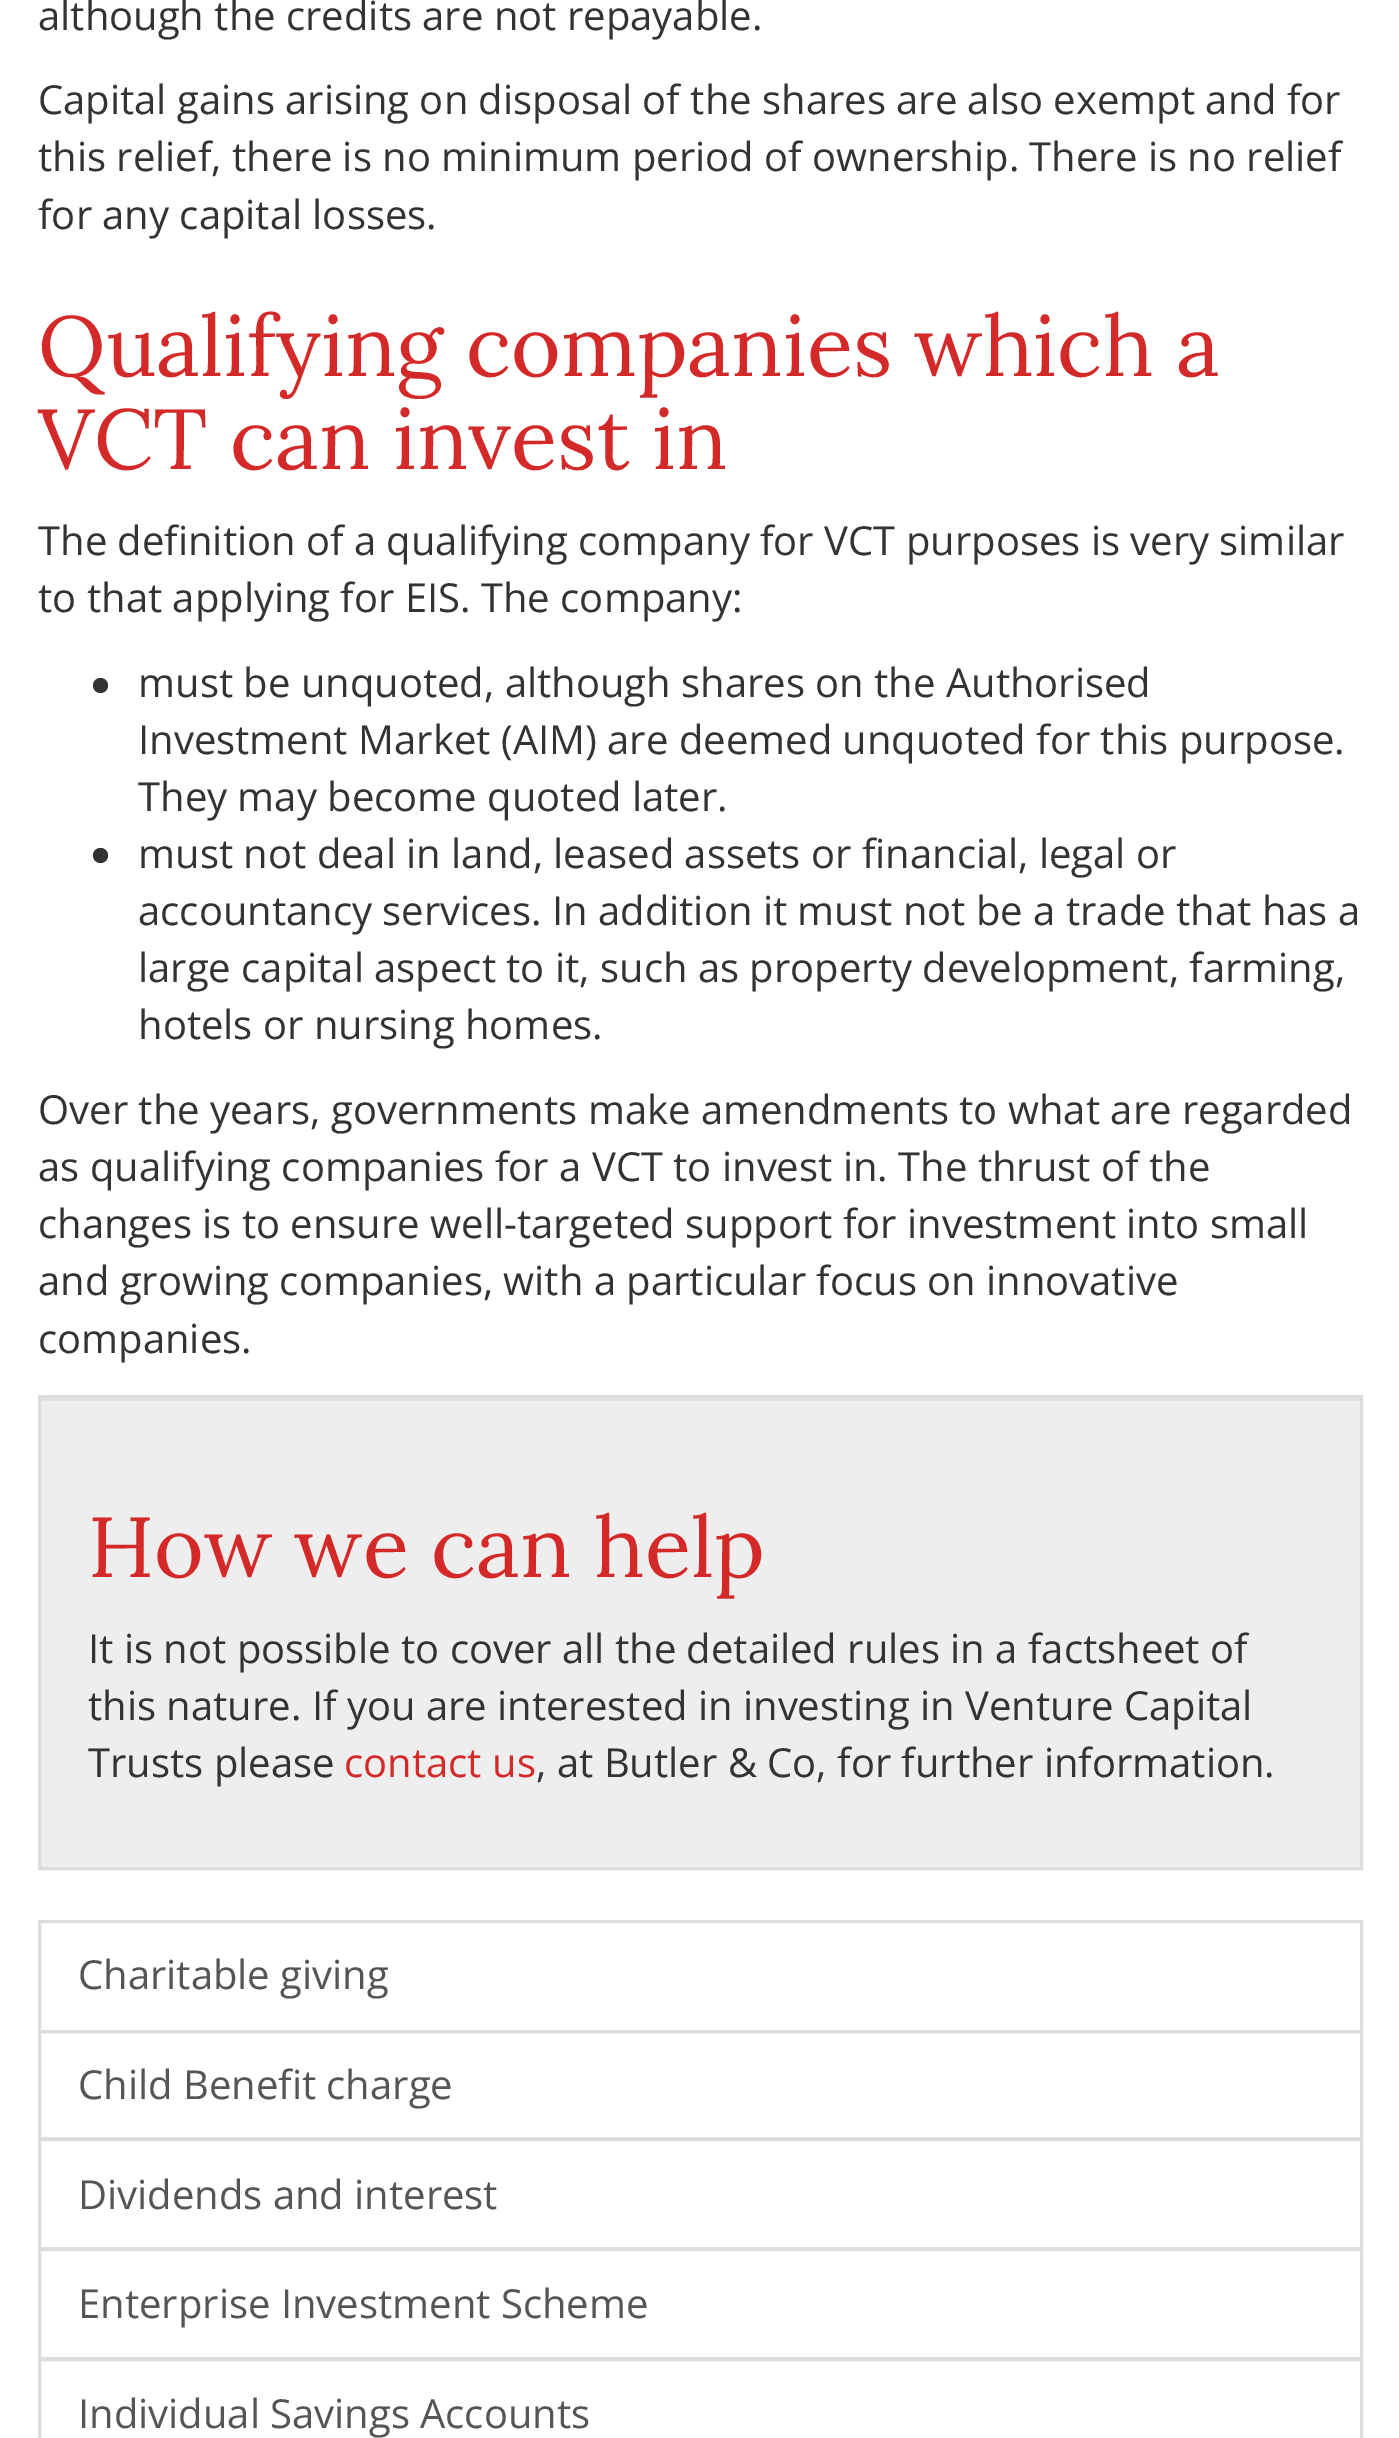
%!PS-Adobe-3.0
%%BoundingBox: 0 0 1399 2438
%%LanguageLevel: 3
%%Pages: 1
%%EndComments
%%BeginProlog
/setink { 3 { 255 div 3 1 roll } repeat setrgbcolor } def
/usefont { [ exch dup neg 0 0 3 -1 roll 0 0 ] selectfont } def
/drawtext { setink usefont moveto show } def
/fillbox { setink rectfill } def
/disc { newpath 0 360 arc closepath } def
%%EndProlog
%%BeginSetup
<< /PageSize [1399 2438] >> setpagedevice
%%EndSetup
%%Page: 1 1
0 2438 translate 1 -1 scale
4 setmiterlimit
0 0 1399 2438 255 255 255 fillbox
(although the credits are not repayable.) 38 30 /OpenSans-Regular 40 51 51 51 drawtext
(Capital gains arising on disposal of the shares are also exempt and for) 38 114 /OpenSans-Regular 40 51 51 51 drawtext
(this relief, there is no minimum period of ownership. There is no relief) 38 171 /OpenSans-Regular 40 51 51 51 drawtext
(for any capital losses.) 38 229 /OpenSans-Regular 40 51 51 51 drawtext
(Qualifying companies which a) 38 376 /Lora-Regular 85 212 41 41 drawtext
(VCT can invest in) 38 469 /Lora-Regular 85 212 41 41 drawtext
(The definition of a qualifying company for VCT purposes is very similar) 38 555 /OpenSans-Regular 40 51 51 51 drawtext
(to that applying for EIS. The company:) 38 612 /OpenSans-Regular 40 51 51 51 drawtext
100.5 685.5 7.5 disc fill
(must be unquoted, although shares on the Authorised) 138 697 /OpenSans-Regular 40 51 51 51 drawtext
(Investment Market \(AIM\) are deemed unquoted for this purpose.) 138 754 /OpenSans-Regular 40 51 51 51 drawtext
(They may become quoted later.) 138 811 /OpenSans-Regular 40 51 51 51 drawtext
100.5 855.5 7.5 disc fill
(must not deal in land, leased assets or financial, legal or) 138 868 /OpenSans-Regular 40 51 51 51 drawtext
(accountancy services. In addition it must not be a trade that has a) 138 925 /OpenSans-Regular 40 51 51 51 drawtext
(large capital aspect to it, such as property development, farming,) 138 982 /OpenSans-Regular 40 51 51 51 drawtext
(hotels or nursing homes.) 138 1039 /OpenSans-Regular 40 51 51 51 drawtext
(Over the years, governments make amendments to what are regarded) 38 1124 /OpenSans-Regular 40 51 51 51 drawtext
(as qualifying companies for a VCT to invest in. The thrust of the) 38 1181 /OpenSans-Regular 40 51 51 51 drawtext
(changes is to ensure well-targeted support for investment into small) 38 1238 /OpenSans-Regular 40 51 51 51 drawtext
(and growing companies, with a particular focus on innovative) 38 1295 /OpenSans-Regular 40 51 51 51 drawtext
(companies.) 38 1353 /OpenSans-Regular 40 51 51 51 drawtext
41 1401 1319 466 238 238 238 fillbox
40 1398 1320 3 226 226 226 fillbox
220 220 220 setink
3 setlinewidth
39.5 1396.5 1322 472 rectstroke
(How we can help) 88 1577 /Lora-Regular 85 212 41 41 drawtext
(It is not possible to cover all the detailed rules in a factsheet of) 88 1663 /OpenSans-Regular 40 51 51 51 drawtext
(this nature. If you are interested in investing in Venture Capital) 88 1720 /OpenSans-Regular 40 51 51 51 drawtext
(Trusts please) 88 1777 /OpenSans-Regular 40 51 51 51 drawtext
(contact us) 344 1777 /OpenSans-Regular 40 212 41 41 drawtext
(, at Butler & Co, for further information.) 536 1777 /OpenSans-Regular 40 51 51 51 drawtext
221 221 221 setink
39.5 1921.5 1322 110 rectstroke
(Charitable giving) 78 1989 /OpenSans-Regular 40 85 85 85 drawtext
221 221 221 setink
39.5 2031.5 1322 107 rectstroke
(Child Benefit charge) 78 2099 /OpenSans-Regular 40 85 85 85 drawtext
221 221 221 setink
39.5 2139.5 1322 109 rectstroke
(Dividends and interest) 78 2209 /OpenSans-Regular 40 85 85 85 drawtext
221 221 221 setink
39.5 2249.5 1322 109 rectstroke
(Enterprise Investment Scheme) 78 2318 /OpenSans-Regular 40 85 85 85 drawtext
221 221 221 setink
39.5 2359.5 1322 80 rectstroke
(Individual Savings Accounts) 78 2428 /OpenSans-Regular 40 85 85 85 drawtext
showpage
%%EOF
